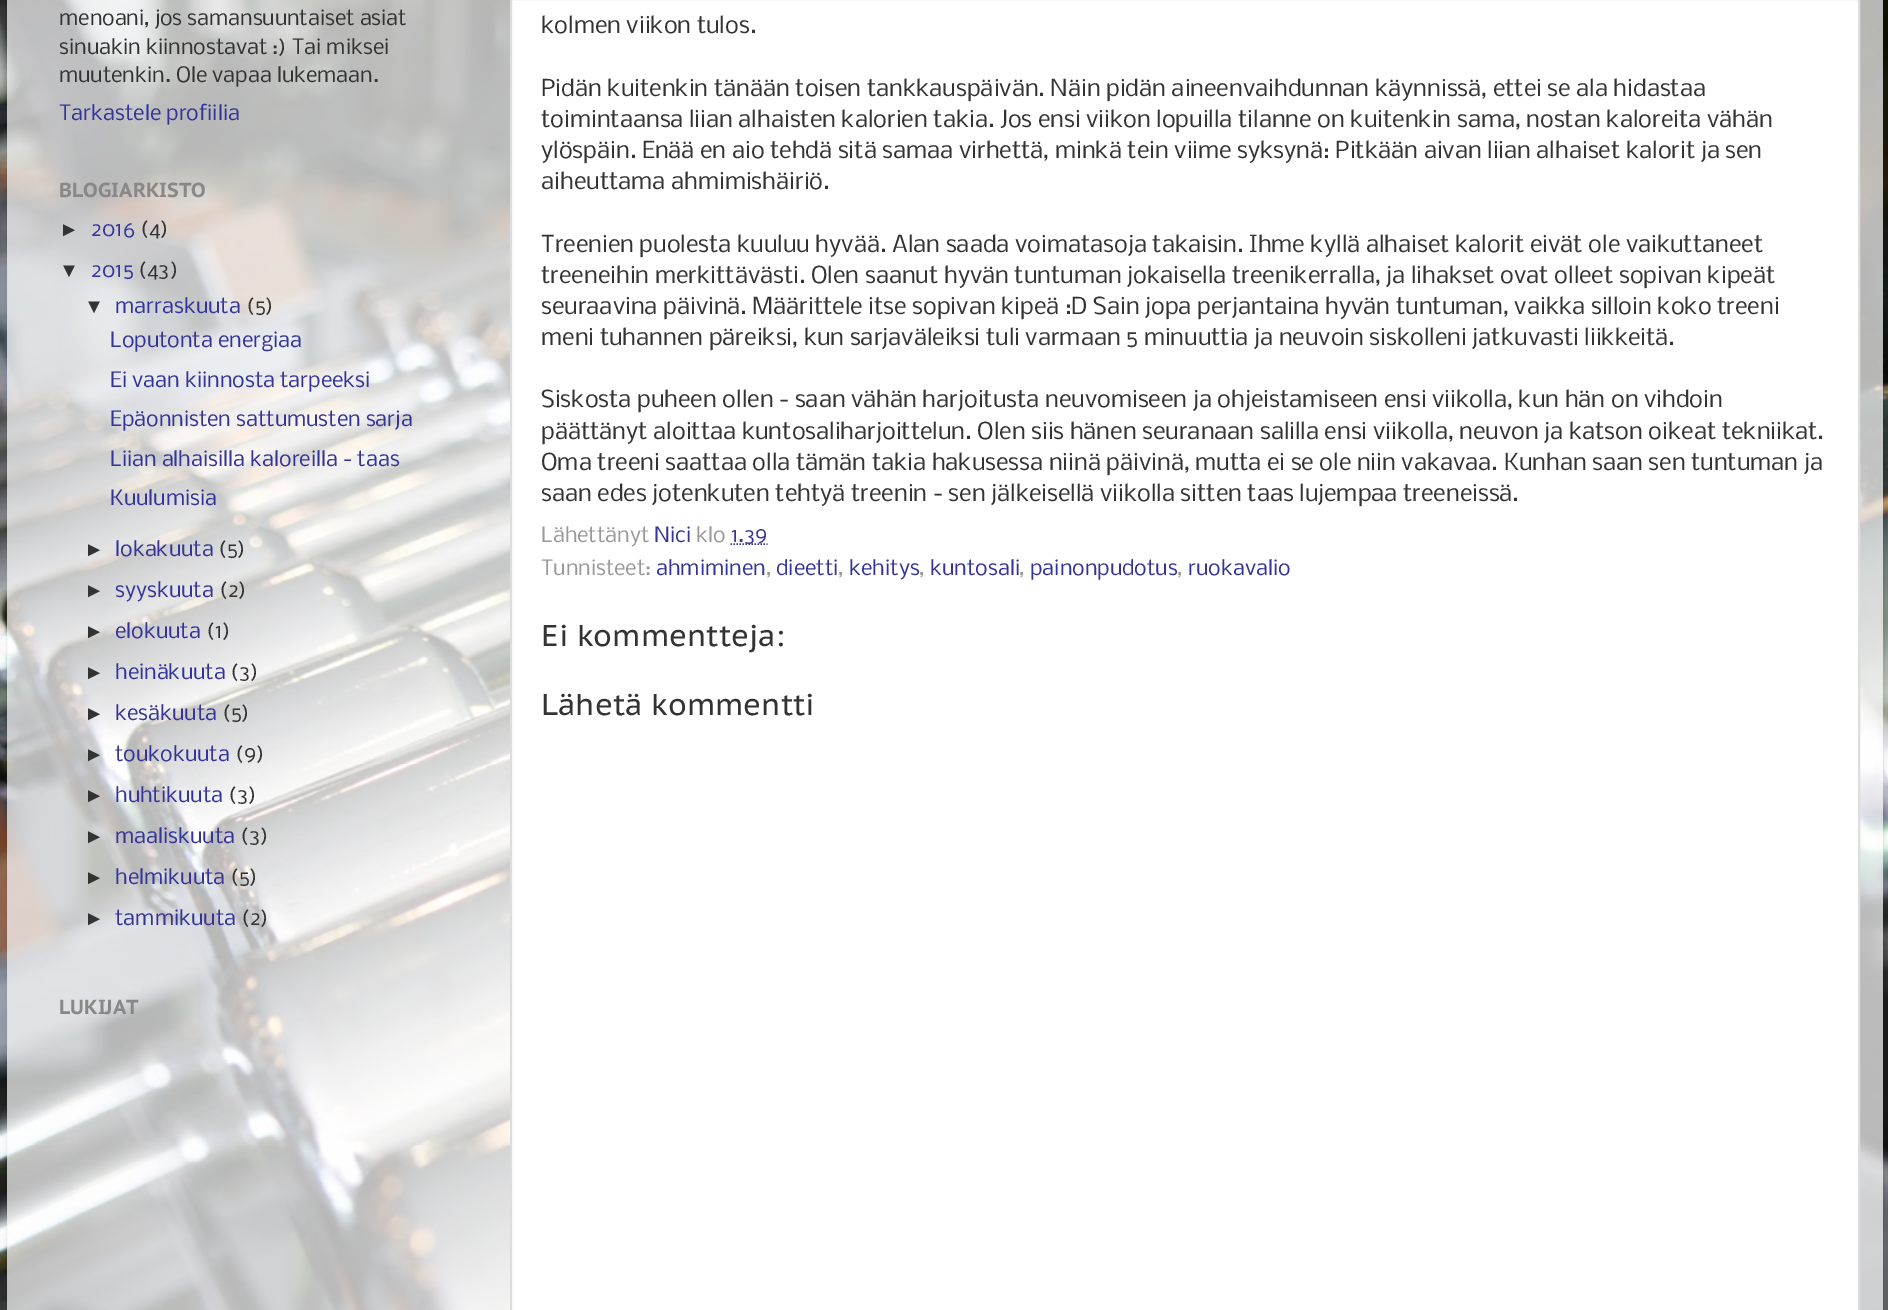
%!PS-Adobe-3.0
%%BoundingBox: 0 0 1888 1310
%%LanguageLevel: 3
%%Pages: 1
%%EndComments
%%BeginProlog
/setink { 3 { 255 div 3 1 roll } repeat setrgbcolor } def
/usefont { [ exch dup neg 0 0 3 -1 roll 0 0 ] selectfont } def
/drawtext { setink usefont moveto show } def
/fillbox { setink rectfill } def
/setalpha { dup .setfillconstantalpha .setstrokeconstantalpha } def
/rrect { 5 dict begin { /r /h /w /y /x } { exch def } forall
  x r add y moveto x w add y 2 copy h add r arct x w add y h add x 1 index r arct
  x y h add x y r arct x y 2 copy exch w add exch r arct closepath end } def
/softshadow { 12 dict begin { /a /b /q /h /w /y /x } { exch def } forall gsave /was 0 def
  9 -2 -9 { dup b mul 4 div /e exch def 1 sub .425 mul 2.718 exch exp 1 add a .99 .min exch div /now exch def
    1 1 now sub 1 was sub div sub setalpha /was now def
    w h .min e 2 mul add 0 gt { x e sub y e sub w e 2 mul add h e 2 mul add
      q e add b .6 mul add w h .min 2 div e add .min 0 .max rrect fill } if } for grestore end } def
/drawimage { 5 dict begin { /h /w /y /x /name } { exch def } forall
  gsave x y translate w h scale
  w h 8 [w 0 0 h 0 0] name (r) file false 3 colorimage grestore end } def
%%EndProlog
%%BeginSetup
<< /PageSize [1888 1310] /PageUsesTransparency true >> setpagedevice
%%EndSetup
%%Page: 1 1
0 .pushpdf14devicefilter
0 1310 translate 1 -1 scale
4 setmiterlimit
0 0 1888 1310 255 255 255 fillbox
(assets/img1.rgb) 0 0 1888 1310 drawimage
gsave
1 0 moveto 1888 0 lineto 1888 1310 lineto 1 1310 lineto closepath 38 -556 moveto 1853 -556 lineto 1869.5 -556 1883 -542.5 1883 -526 curveto 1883 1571 lineto 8 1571 lineto 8 -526 lineto 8 -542.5 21.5 -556 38 -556 curveto closepath eoclip newpath
0 0 0 setink
8 -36 1875 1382 30 2 0.15 softshadow
grestore
0.7 setalpha
7 0 1876 1310 255 255 255 fillbox
1 setalpha
(menoani, jos samansuuntaiset asiat) 59 25 /Nobile-Regular 20.25 51 51 51 drawtext
(sinuakin kiinnostavat :\) Tai miksei) 59 54 /Nobile-Regular 20.25 51 51 51 drawtext
(muutenkin. Ole vapaa lukemaan.) 59 82 /Nobile-Regular 20.25 51 51 51 drawtext
(Tarkastele profiilia) 59 120 /Nobile-Regular 20.25 51 51 153 drawtext
(BLOGIARKISTO) 59 197 /PTSansCaption-Bold 20.25 136 136 136 drawtext
(►) 59 236 /LiberationSans-Regular 20.25 51 51 51 drawtext
(2016) 91 236 /Nobile-Regular 20.25 51 51 153 drawtext
(\(4\)) 140 236 /Nobile-Regular 20.25 51 51 51 drawtext
(▼) 59 277 /LiberationSans-Regular 20.25 51 51 51 drawtext
(2015) 91 277 /Nobile-Regular 20.25 51 51 153 drawtext
(\(43\)) 138 277 /Nobile-Regular 20.25 51 51 51 drawtext
(▼) 84 313 /LiberationSans-Regular 20.25 51 51 51 drawtext
(marraskuuta) 115 313 /Nobile-Regular 20.25 51 51 153 drawtext
(\(5\)) 246 313 /Nobile-Regular 20.25 51 51 51 drawtext
(Loputonta energiaa) 110 347 /Nobile-Regular 20.25 51 51 153 drawtext
(Ei vaan kiinnosta tarpeeksi) 110 387 /Nobile-Regular 20.25 51 51 153 drawtext
(Epäonnisten sattumusten sarja) 110 426 /Nobile-Regular 20.25 51 51 153 drawtext
(Liian alhaisilla kaloreilla - taas) 110 466 /Nobile-Regular 20.25 51 51 153 drawtext
(Kuulumisia) 110 505 /Nobile-Regular 20.25 51 51 153 drawtext
(►) 84 556 /LiberationSans-Regular 20.25 51 51 51 drawtext
(lokakuuta) 115 556 /Nobile-Regular 20.25 51 51 153 drawtext
(\(5\)) 218 556 /Nobile-Regular 20.25 51 51 51 drawtext
(►) 84 597 /LiberationSans-Regular 20.25 51 51 51 drawtext
(syyskuuta) 115 597 /Nobile-Regular 20.25 51 51 153 drawtext
(\(2\)) 219 597 /Nobile-Regular 20.25 51 51 51 drawtext
(►) 84 638 /LiberationSans-Regular 20.25 51 51 51 drawtext
(elokuuta) 115 638 /Nobile-Regular 20.25 51 51 153 drawtext
(\(1\)) 206 638 /Nobile-Regular 20.25 51 51 51 drawtext
(►) 84 679 /LiberationSans-Regular 20.25 51 51 51 drawtext
(heinäkuuta) 115 679 /Nobile-Regular 20.25 51 51 153 drawtext
(\(3\)) 230 679 /Nobile-Regular 20.25 51 51 51 drawtext
(►) 84 720 /LiberationSans-Regular 20.25 51 51 51 drawtext
(kesäkuuta) 115 720 /Nobile-Regular 20.25 51 51 153 drawtext
(\(5\)) 222 720 /Nobile-Regular 20.25 51 51 51 drawtext
(►) 84 761 /LiberationSans-Regular 20.25 51 51 51 drawtext
(toukokuuta) 115 761 /Nobile-Regular 20.25 51 51 153 drawtext
(\(9\)) 235 761 /Nobile-Regular 20.25 51 51 51 drawtext
(►) 84 802 /LiberationSans-Regular 20.25 51 51 51 drawtext
(huhtikuuta) 115 802 /Nobile-Regular 20.25 51 51 153 drawtext
(\(3\)) 228 802 /Nobile-Regular 20.25 51 51 51 drawtext
(►) 84 843 /LiberationSans-Regular 20.25 51 51 51 drawtext
(maaliskuuta) 115 843 /Nobile-Regular 20.25 51 51 153 drawtext
(\(3\)) 240 843 /Nobile-Regular 20.25 51 51 51 drawtext
(►) 84 884 /LiberationSans-Regular 20.25 51 51 51 drawtext
(helmikuuta) 115 884 /Nobile-Regular 20.25 51 51 153 drawtext
(\(5\)) 230 884 /Nobile-Regular 20.25 51 51 51 drawtext
(►) 84 925 /LiberationSans-Regular 20.25 51 51 51 drawtext
(tammikuuta) 115 925 /Nobile-Regular 20.25 51 51 153 drawtext
(\(2\)) 241 925 /Nobile-Regular 20.25 51 51 51 drawtext
(LUKIJAT) 59 1014 /PTSansCaption-Bold 20.25 136 136 136 drawtext
255 255 255 setink
511 -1 moveto 1859 -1 lineto 1859 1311 lineto 511 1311 lineto closepath gsave fill grestore
221 221 221 setink
2 setlinewidth
stroke
(kolmen viikon tulos.) 541 33 /Nobile-Regular 22.27 51 51 51 drawtext
(Pidän kuitenkin tänään toisen tankkauspäivän. Näin pidän aineenvaihdunnan käynnissä, ettei se ala hidastaa) 541 96 /Nobile-Regular 22.27 51 51 51 drawtext
(toimintaansa liian alhaisten kalorien takia. Jos ensi viikon lopuilla tilanne on kuitenkin sama, nostan kaloreita vähän) 541 127 /Nobile-Regular 22.27 51 51 51 drawtext
(ylöspäin. Enää en aio tehdä sitä samaa virhettä, minkä tein viime syksynä: Pitkään aivan liian alhaiset kalorit ja sen) 541 158 /Nobile-Regular 22.27 51 51 51 drawtext
(aiheuttama ahmimishäiriö.) 541 189 /Nobile-Regular 22.27 51 51 51 drawtext
(Treenien puolesta kuuluu hyvää. Alan saada voimatasoja takaisin. Ihme kyllä alhaiset kalorit eivät ole vaikuttaneet) 541 252 /Nobile-Regular 22.27 51 51 51 drawtext
(treeneihin merkittävästi. Olen saanut hyvän tuntuman jokaisella treenikerralla, ja lihakset ovat olleet sopivan kipeät) 541 283 /Nobile-Regular 22.27 51 51 51 drawtext
(seuraavina päivinä. Määrittele itse sopivan kipeä :D Sain jopa perjantaina hyvän tuntuman, vaikka silloin koko treeni) 541 314 /Nobile-Regular 22.27 51 51 51 drawtext
(meni tuhannen päreiksi, kun sarjaväleiksi tuli varmaan 5 minuuttia ja neuvoin siskolleni jatkuvasti liikkeitä.) 541 345 /Nobile-Regular 22.27 51 51 51 drawtext
(Siskosta puheen ollen - saan vähän harjoitusta neuvomiseen ja ohjeistamiseen ensi viikolla, kun hän on vihdoin) 541 407 /Nobile-Regular 22.27 51 51 51 drawtext
(päättänyt aloittaa kuntosaliharjoittelun. Olen siis hänen seuranaan salilla ensi viikolla, neuvon ja katson oikeat tekniikat.) 541 439 /Nobile-Regular 22.27 51 51 51 drawtext
(Oma treeni saattaa olla tämän takia hakusessa niinä päivinä, mutta ei se ole niin vakavaa. Kunhan saan sen tuntuman ja) 541 470 /Nobile-Regular 22.27 51 51 51 drawtext
(saan edes jotenkuten tehtyä treenin - sen jälkeisellä viikolla sitten taas lujempaa treeneissä.) 541 501 /Nobile-Regular 22.27 51 51 51 drawtext
(Lähettänyt) 541 542 /Nobile-Regular 20.25 153 153 153 drawtext
(Nici) 654 542 /Nobile-Regular 20.25 51 51 153 drawtext
(klo) 696 542 /Nobile-Regular 20.25 153 153 153 drawtext
51 51 153 setink
1.5 setlinewidth
[1.5 1.5] 0 setdash
730.5 544 moveto 767.5 544 lineto stroke
(1.39) 731 542 /Nobile-Regular 20.25 51 51 153 drawtext
(Tunnisteet:) 541 575 /Nobile-Regular 20.25 153 153 153 drawtext
(ahmiminen) 656 575 /Nobile-Regular 20.25 51 51 153 drawtext
(,) 766 575 /Nobile-Regular 20.25 153 153 153 drawtext
(dieetti) 776 575 /Nobile-Regular 20.25 51 51 153 drawtext
(,) 838 575 /Nobile-Regular 20.25 153 153 153 drawtext
(kehitys) 849 575 /Nobile-Regular 20.25 51 51 153 drawtext
(,) 919 575 /Nobile-Regular 20.25 153 153 153 drawtext
(kuntosali) 930 575 /Nobile-Regular 20.25 51 51 153 drawtext
(,) 1019 575 /Nobile-Regular 20.25 153 153 153 drawtext
(painonpudotus) 1030 575 /Nobile-Regular 20.25 51 51 153 drawtext
(,) 1177 575 /Nobile-Regular 20.25 153 153 153 drawtext
(ruokavalio) 1188 575 /Nobile-Regular 20.25 51 51 153 drawtext
(Ei kommentteja:) 541 646 /PTSansCaption-Regular 30 51 51 51 drawtext
(Lähetä kommentti) 541 715 /PTSansCaption-Regular 30 51 51 51 drawtext
.poppdf14devicefilter showpage
%%EOF
